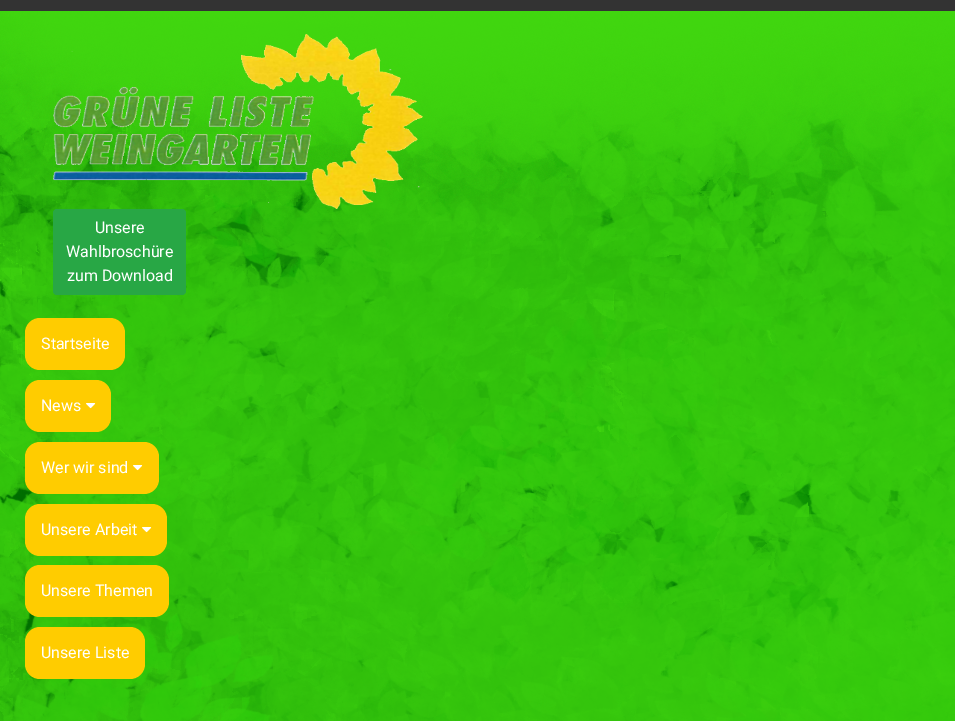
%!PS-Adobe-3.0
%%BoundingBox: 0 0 955 721
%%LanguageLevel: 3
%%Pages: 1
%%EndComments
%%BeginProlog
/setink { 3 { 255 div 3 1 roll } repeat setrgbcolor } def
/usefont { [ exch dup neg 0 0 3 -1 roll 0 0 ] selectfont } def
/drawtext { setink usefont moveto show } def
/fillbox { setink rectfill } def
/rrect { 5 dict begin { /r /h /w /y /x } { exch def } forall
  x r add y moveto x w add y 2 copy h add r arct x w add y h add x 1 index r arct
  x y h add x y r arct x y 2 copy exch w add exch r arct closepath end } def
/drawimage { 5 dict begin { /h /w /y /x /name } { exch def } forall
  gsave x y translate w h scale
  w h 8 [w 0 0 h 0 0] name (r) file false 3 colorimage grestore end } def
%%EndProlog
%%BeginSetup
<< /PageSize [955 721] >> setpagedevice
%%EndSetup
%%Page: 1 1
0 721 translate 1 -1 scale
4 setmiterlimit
0 0 955 721 255 255 255 fillbox
(assets/img1.rgb) 0 11 955 710 drawimage
0 0 955 11 51 51 51 fillbox
(assets/img2.rgb) 53 34 370 175 drawimage
40 167 69 setink
53 209 133 86 4 rrect fill
(Unsere) 95 233 /Roboto-Regular 16 255 255 255 drawtext
(Wahlbroschüre) 66 257 /Roboto-Regular 16 255 255 255 drawtext
(zum Download) 67 281 /Roboto-Regular 16 255 255 255 drawtext
255 204 0 setink
25 318 100 52 15 rrect fill
(Startseite) 41 349 /Roboto-Regular 16 255 255 255 drawtext
255 204 0 setink
25 380 86 52 15 rrect fill
(News) 41 411 /Roboto-Regular 16 255 255 255 drawtext
(assets/img3.rgb) 86 403 10 6 drawimage
255 204 0 setink
25 442 134 52 15 rrect fill
(Wer wir sind) 41 473 /Roboto-Regular 16 255 255 255 drawtext
(assets/img3.rgb) 133 465 10 6 drawimage
255 204 0 setink
25 504 142 52 15 rrect fill
(Unsere Arbeit) 41 535 /Roboto-Regular 16 255 255 255 drawtext
(assets/img3.rgb) 142 527 10 6 drawimage
255 204 0 setink
25 565 144 52 15 rrect fill
(Unsere Themen) 41 596 /Roboto-Regular 16 255 255 255 drawtext
255 204 0 setink
25 627 120 52 15 rrect fill
(Unsere Liste) 41 658 /Roboto-Regular 16 255 255 255 drawtext
showpage
%%EOF
